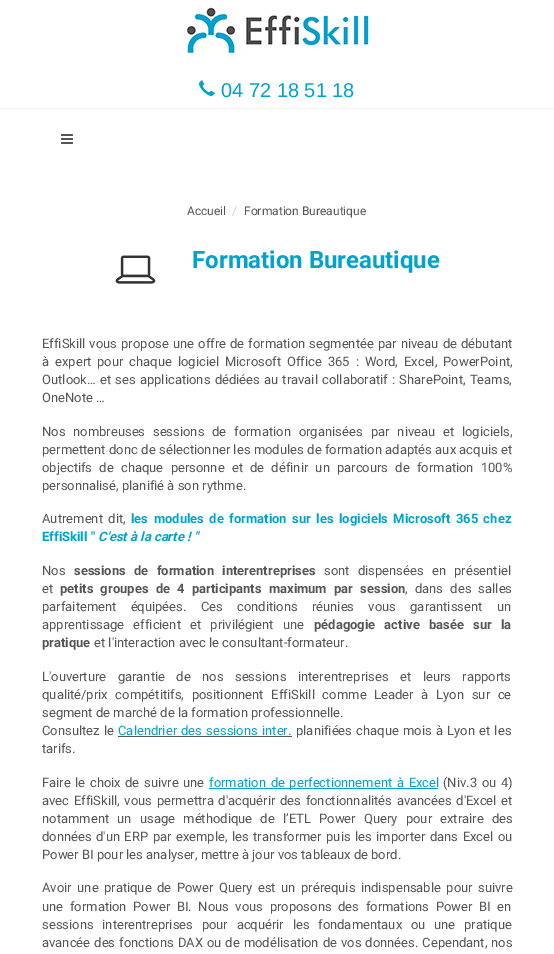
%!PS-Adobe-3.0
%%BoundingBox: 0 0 554 954
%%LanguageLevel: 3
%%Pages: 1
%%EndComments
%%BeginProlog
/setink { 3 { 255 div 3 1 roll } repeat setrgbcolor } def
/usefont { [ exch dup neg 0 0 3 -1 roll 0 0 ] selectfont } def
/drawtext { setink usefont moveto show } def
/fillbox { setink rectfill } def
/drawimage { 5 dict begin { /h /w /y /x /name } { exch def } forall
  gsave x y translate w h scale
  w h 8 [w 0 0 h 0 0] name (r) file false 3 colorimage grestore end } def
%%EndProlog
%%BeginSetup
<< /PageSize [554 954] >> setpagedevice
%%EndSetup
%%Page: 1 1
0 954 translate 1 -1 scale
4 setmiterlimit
0 0 554 954 255 255 255 fillbox
(assets/img1.rgb) 185 7 184 49 drawimage
(assets/img2.rgb) 199 80 16 16 drawimage
(04 72 18 51 18) 221 97 /LiberationSans-Regular 20 0 163 206 drawtext
0 108 554 1 245 245 245 fillbox
(assets/img3.rgb) 61 134 12 10 drawimage
(Accueil) 187 215 /Roboto-Regular 12 85 85 85 drawtext
(/) 232 215 /Roboto-Regular 12 204 204 204 drawtext
(Formation Bureautique) 244 215 /Roboto-Regular 12 85 85 85 drawtext
(assets/img4.rgb) 115 255 41 29 drawimage
(Formation Bureautique) 192 268 /Roboto-Bold 24 0 163 206 drawtext
/Roboto-Regular 13 usefont
85 85 85 setink
42 348 moveto 0.9 0 32 (EffiSkill vous propose une offre de formation segmentée par niveau de débutant) widthshow
42 366 moveto 2.75 0 32 (à expert pour chaque logiciel Microsoft Office 365 : Word, Excel, PowerPoint,) widthshow
42 384 moveto 1 0 32 (Outlook… et ses applications dédiées au travail collaboratif : SharePoint, Teams,) widthshow
(OneNote …) 42 402 /Roboto-Regular 13 85 85 85 drawtext
42 436 moveto 4.5 0 32 (Nos nombreuses sessions de formation organisées) widthshow
371 436 moveto 4.5 0 32 (par niveau et logiciels,) widthshow
42 454 moveto 0.25 0 32 (permettent donc de sélectionner les modules de formation adaptés aux acquis et) widthshow
42 472 moveto 4 0 32 (objectifs de chaque personne et de définir un parcours de formation 100%) widthshow
(personnalisé, planifié à son rythme.) 42 490 /Roboto-Regular 13 85 85 85 drawtext
42 523 moveto 2.25 0 32 (Autrement dit,) widthshow
/Roboto-Bold 13 usefont
0 163 206 setink
131 523 moveto 2.25 0 32 (les modules de formation sur les logiciels Microsoft 365 chez) widthshow
(EffiSkill ") 42 541 /Roboto-Bold 13 0 163 206 drawtext
(C'est à la carte ! ") 98 541 /Roboto-BoldItalic 13 0 163 206 drawtext
(Nos) 42 575 /Roboto-Regular 13 85 85 85 drawtext
/Roboto-Bold 13 usefont
74 575 moveto 5 0 32 (sessions de formation interentreprises) widthshow
/Roboto-Regular 13 usefont
324 575 moveto 5 0 32 (sont dispensées en présentiel) widthshow
(et) 42 593 /Roboto-Regular 13 85 85 85 drawtext
/Roboto-Bold 13 usefont
60 593 moveto 4 0 32 (petits groupes de 4 participants maximum par session) widthshow
/Roboto-Regular 13 usefont
405 593 moveto 4 0 32 (, dans des salles) widthshow
42 611 moveto 11 0 32 (parfaitement équipées. Ces conditions réunies vous garantissent un) widthshow
42 629 moveto 6 0 32 (apprentissage efficient et privilégient une) widthshow
/Roboto-Bold 13 usefont
314 629 moveto 6 0 32 (pédagogie active basée sur la) widthshow
(pratique) 42 647 /Roboto-Bold 13 85 85 85 drawtext
(et l'interaction avec le consultant-formateur.) 94 647 /Roboto-Regular 13 85 85 85 drawtext
42 681 moveto 8.25 0 32 (L'ouverture garantie de nos sessions interentreprises et leurs rapports) widthshow
42 699 moveto 4.5 0 32 (qualité/prix compétitifs, positionnent EffiSkill comme Leader à Lyon sur ce) widthshow
(segment de marché de la formation professionnelle.) 42 717 /Roboto-Regular 13 85 85 85 drawtext
42 735 moveto 1 0 32 (Consultez le) widthshow
0 163 206 setink
118 735 moveto 1 0 32 (Calendrier des sessions inter.) widthshow
118 736 174 1 85 85 85 fillbox
296 735 moveto 1 0 32 (planifiées chaque mois à Lyon et les) widthshow
(tarifs.) 42 753 /Roboto-Regular 13 85 85 85 drawtext
42 787 moveto 1.25 0 32 (Faire le choix de suivre une) widthshow
209 788 229 1 0 163 206 fillbox
209 787 moveto 1.5 0 32 (formation de perfectionnement à Excel) widthshow
85 85 85 setink
443 787 moveto 1.5 0 32 (\(Niv.3 ou 4\)) widthshow
42 805 moveto 1.5 0 32 (avec EffiSkill, vous permettra d'acquérir des fonctionnalités avancées d'Excel et) widthshow
42 823 moveto 5 0 32 (notamment un usage méthodique de l’ETL Power Query pour extraire des) widthshow
42 841 moveto 1.25 0 32 (données d'un ERP par exemple, les transformer puis les importer dans Excel ou) widthshow
(Power BI pour les analyser, mettre à jour vos tableaux de bord.) 42 859 /Roboto-Regular 13 85 85 85 drawtext
42 892 moveto 2.25 0 32 (Avoir une pratique de Power Query est un prérequis indispensable pour suivre) widthshow
42 911 moveto 3.4 0 32 (une formation Power BI. Nous vous proposons des formations Power BI en) widthshow
42 929 moveto 5.5 0 32 (sessions interentreprises pour acquérir les fondamentaux ou une pratique) widthshow
42 947 moveto 0.75 0 32 (avancée des fonctions DAX ou de modélisation de vos données. Cependant, nos) widthshow
showpage
%%EOF
